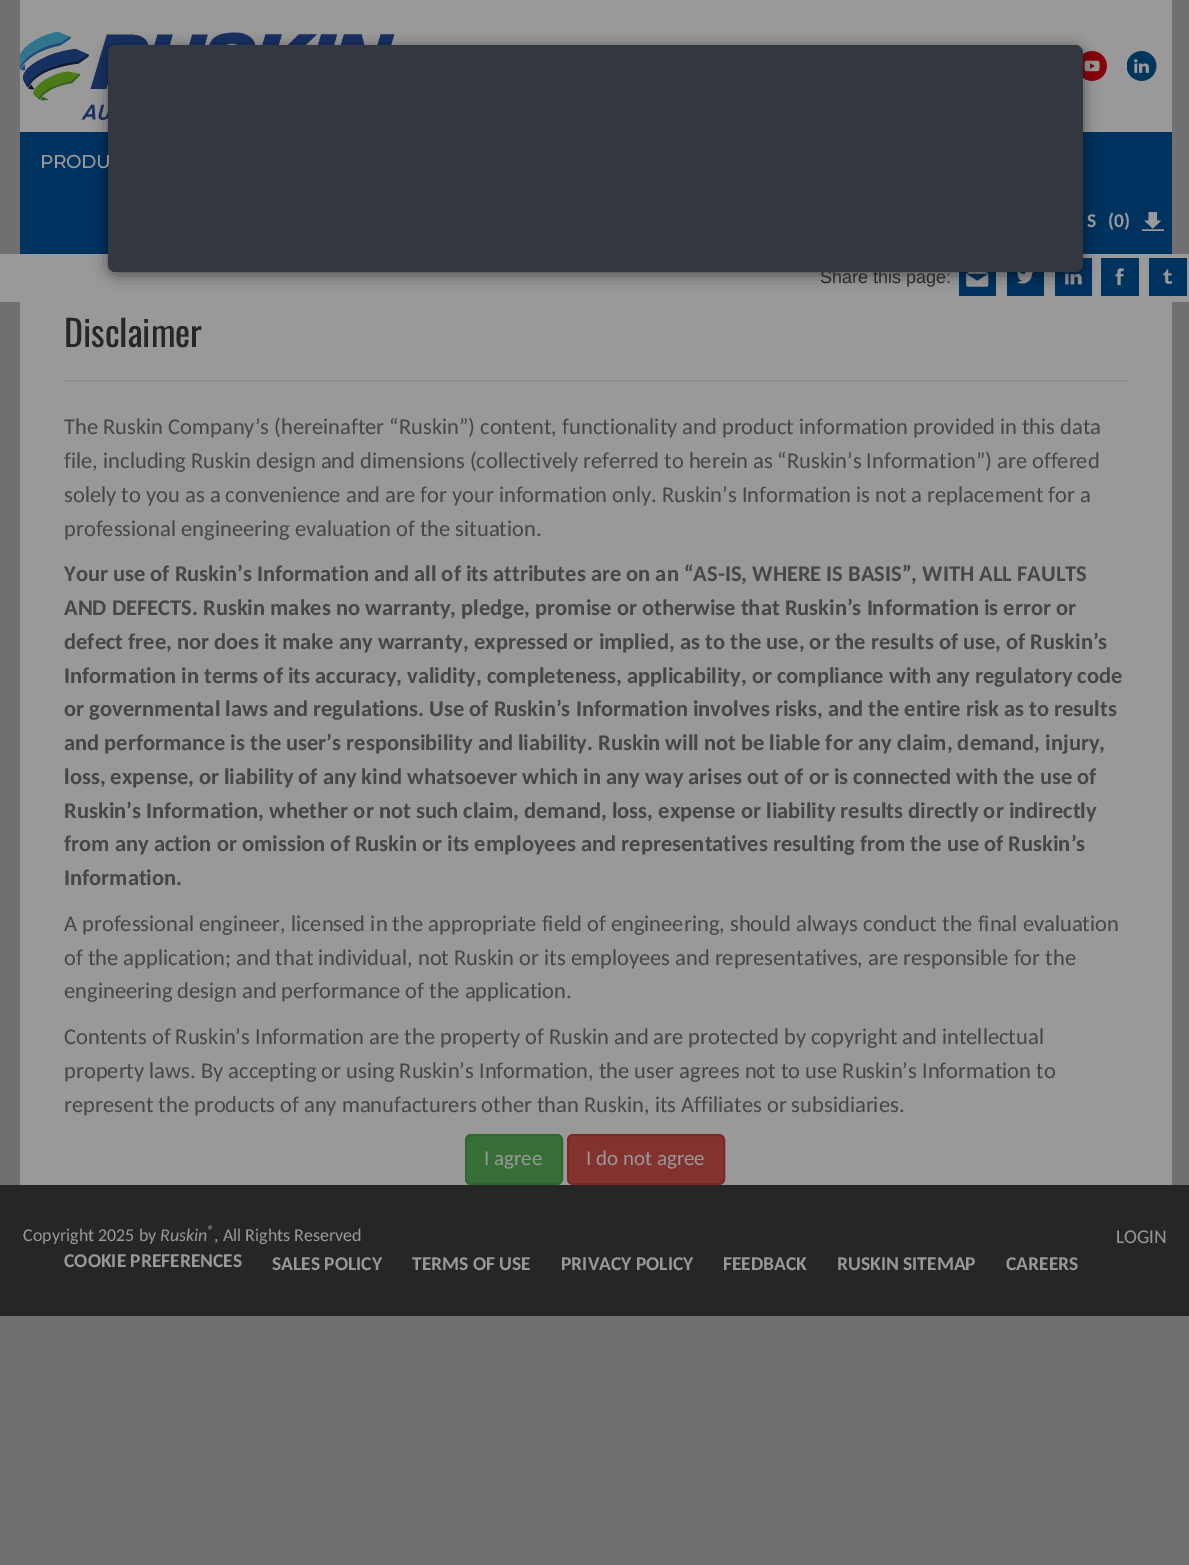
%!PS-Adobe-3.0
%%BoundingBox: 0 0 1189 1565
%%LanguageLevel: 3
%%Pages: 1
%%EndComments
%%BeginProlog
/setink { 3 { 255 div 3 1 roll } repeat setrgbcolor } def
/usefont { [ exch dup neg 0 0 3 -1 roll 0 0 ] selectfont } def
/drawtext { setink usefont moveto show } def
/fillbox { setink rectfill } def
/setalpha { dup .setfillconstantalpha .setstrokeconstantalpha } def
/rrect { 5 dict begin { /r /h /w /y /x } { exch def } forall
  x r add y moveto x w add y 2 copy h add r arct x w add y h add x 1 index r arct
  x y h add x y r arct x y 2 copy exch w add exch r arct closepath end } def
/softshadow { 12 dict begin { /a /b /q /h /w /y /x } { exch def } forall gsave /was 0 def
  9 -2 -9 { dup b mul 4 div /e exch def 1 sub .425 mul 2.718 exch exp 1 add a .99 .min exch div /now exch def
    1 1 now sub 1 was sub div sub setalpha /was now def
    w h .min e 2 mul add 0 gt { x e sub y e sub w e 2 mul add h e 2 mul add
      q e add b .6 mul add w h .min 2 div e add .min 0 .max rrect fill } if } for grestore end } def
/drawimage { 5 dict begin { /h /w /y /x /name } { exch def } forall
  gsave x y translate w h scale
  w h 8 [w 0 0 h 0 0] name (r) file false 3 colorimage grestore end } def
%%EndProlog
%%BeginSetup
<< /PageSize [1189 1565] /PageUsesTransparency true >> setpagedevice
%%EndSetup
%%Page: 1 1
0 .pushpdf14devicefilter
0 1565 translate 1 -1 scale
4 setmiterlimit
0 0 1189 1565 112 112 112 fillbox
20 0 1152 132 153 153 153 fillbox
(assets/img1.rgb) 20 32 375 88 drawimage
(assets/img2.rgb) 1083 51 24 30 drawimage
20 132 1152 122 0 50 95 fillbox
0 254 1189 48 153 153 153 fillbox
(assets/img5.rgb) 959 272 37 24 drawimage
(assets/img6.rgb) 1007 272 37 24 drawimage
(assets/img7.rgb) 1055 258 37 38 drawimage
(assets/img8.rgb) 1101 258 38 38 drawimage
0 0 0 setink
108 48 975 227 8 7.5 0.5 softshadow
(Share this page:) 820 283 /LiberationSans-Regular 18 38 38 38 drawtext
51 55 64 setink
108 45 975 227 8 rrect fill
108 47 975 225 8 rrect fill
(assets/img3.rgb) 1127 51 30 30 drawimage
(PRODU) 40 168 /Montserrat-Bold 18 153 153 153 drawtext
(S) 1087 227 /Carlito-Bold 19.5 153 153 153 drawtext
(\(0\)) 1108 227 /Carlito-Bold 19.5 153 153 153 drawtext
(assets/img4.rgb) 1142 212 22 19 drawimage
(assets/img9.rgb) 1149 258 38 38 drawimage
20 302 1152 883 153 153 153 fillbox
(Disclaimer) 64 347 /Oswald-Regular 36 38 38 38 drawtext
65 380 1062 2 143 143 143 fillbox
(The Ruskin Company’s \(hereinafter “Ruskin”\) content, functionality and product information provided in this data) 64 434 /Carlito-Regular 22.5 70 70 70 drawtext
(file, including Ruskin design and dimensions \(collectively referred to herein as “Ruskin’s Information”\) are offered) 64 468 /Carlito-Regular 22.5 70 70 70 drawtext
(solely to you as a convenience and are for your information only. Ruskin’s Information is not a replacement for a) 64 502 /Carlito-Regular 22.5 70 70 70 drawtext
(professional engineering evaluation of the situation.) 64 536 /Carlito-Regular 22.5 70 70 70 drawtext
(Your use of Ruskin’s Information and all of its attributes are on an “AS-IS, WHERE IS BASIS”, WITH ALL FAULTS) 64 581 /Carlito-Bold 22.5 70 70 70 drawtext
(AND DEFECTS. Ruskin makes no warranty, pledge, promise or otherwise that Ruskin’s Information is error or) 64 615 /Carlito-Bold 22.5 70 70 70 drawtext
(defect free, nor does it make any warranty, expressed or implied, as to the use, or the results of use, of Ruskin’s) 64 649 /Carlito-Bold 22.5 70 70 70 drawtext
(Information in terms of its accuracy, validity, completeness, applicability, or compliance with any regulatory code) 64 683 /Carlito-Bold 22.5 70 70 70 drawtext
(or governmental laws and regulations. Use of Ruskin’s Information involves risks, and the entire risk as to results) 64 716 /Carlito-Bold 22.5 70 70 70 drawtext
(and performance is the user’s responsibility and liability. Ruskin will not be liable for any claim, demand, injury,) 64 750 /Carlito-Bold 22.5 70 70 70 drawtext
(loss, expense, or liability of any kind whatsoever which in any way arises out of or is connected with the use of) 64 784 /Carlito-Bold 22.5 70 70 70 drawtext
(Ruskin’s Information, whether or not such claim, demand, loss, expense or liability results directly or indirectly) 64 818 /Carlito-Bold 22.5 70 70 70 drawtext
(from any action or omission of Ruskin or its employees and representatives resulting from the use of Ruskin’s) 64 851 /Carlito-Bold 22.5 70 70 70 drawtext
(Information.) 64 885 /Carlito-Bold 22.5 70 70 70 drawtext
(A professional engineer, licensed in the appropriate field of engineering, should always conduct the final evaluation) 64 931 /Carlito-Regular 22.5 70 70 70 drawtext
(of the application; and that individual, not Ruskin or its employees and representatives, are responsible for the) 64 965 /Carlito-Regular 22.5 70 70 70 drawtext
(engineering design and performance of the application.) 64 998 /Carlito-Regular 22.5 70 70 70 drawtext
(Contents of Ruskin’s Information are the property of Ruskin and are protected by copyright and intellectual) 64 1044 /Carlito-Regular 22.5 70 70 70 drawtext
(property laws. By accepting or using Ruskin’s Information, the user agrees not to use Ruskin’s Information to) 64 1078 /Carlito-Regular 22.5 70 70 70 drawtext
(represent the products of any manufacturers other than Ruskin, its Affiliates or subsidiaries.) 64 1112 /Carlito-Regular 22.5 70 70 70 drawtext
55 110 55 setink
466 1135 96 49 5 rrect gsave fill grestore
46 104 46 setink
2 setlinewidth
stroke
(I agree) 484 1165 /Carlito-Regular 21 153 153 153 drawtext
130 50 47 setink
568 1135 156 49 5 rrect gsave fill grestore
127 38 35 setink
stroke
(I do not agree) 586 1165 /Carlito-Regular 21 153 153 153 drawtext
0 1185 1189 131 38 38 38 fillbox
(®) 207 1235 /Carlito-Italic 14 153 153 153 drawtext
(Copyright 2025 by) 23 1241 /Carlito-Regular 18 153 153 153 drawtext
(Ruskin) 160 1241 /Carlito-Italic 18 153 153 153 drawtext
(, All Rights Reserved) 214 1241 /Carlito-Regular 18 153 153 153 drawtext
(LOGIN) 1116 1243 /Carlito-Regular 19.5 153 153 153 drawtext
(COOKIE PREFERENCES) 64 1267 /Carlito-Bold 19.5 153 153 153 drawtext
(SALES POLICY) 272 1270 /Carlito-Bold 19.5 153 153 153 drawtext
(TERMS OF USE) 412 1270 /Carlito-Bold 19.5 153 153 153 drawtext
(PRIVACY POLICY) 561 1270 /Carlito-Bold 19.5 153 153 153 drawtext
(FEEDBACK) 723 1270 /Carlito-Bold 19.5 153 153 153 drawtext
(RUSKIN SITEMAP) 837 1270 /Carlito-Bold 19.5 153 153 153 drawtext
(CAREERS) 1006 1270 /Carlito-Bold 19.5 153 153 153 drawtext
.poppdf14devicefilter showpage
%%EOF
